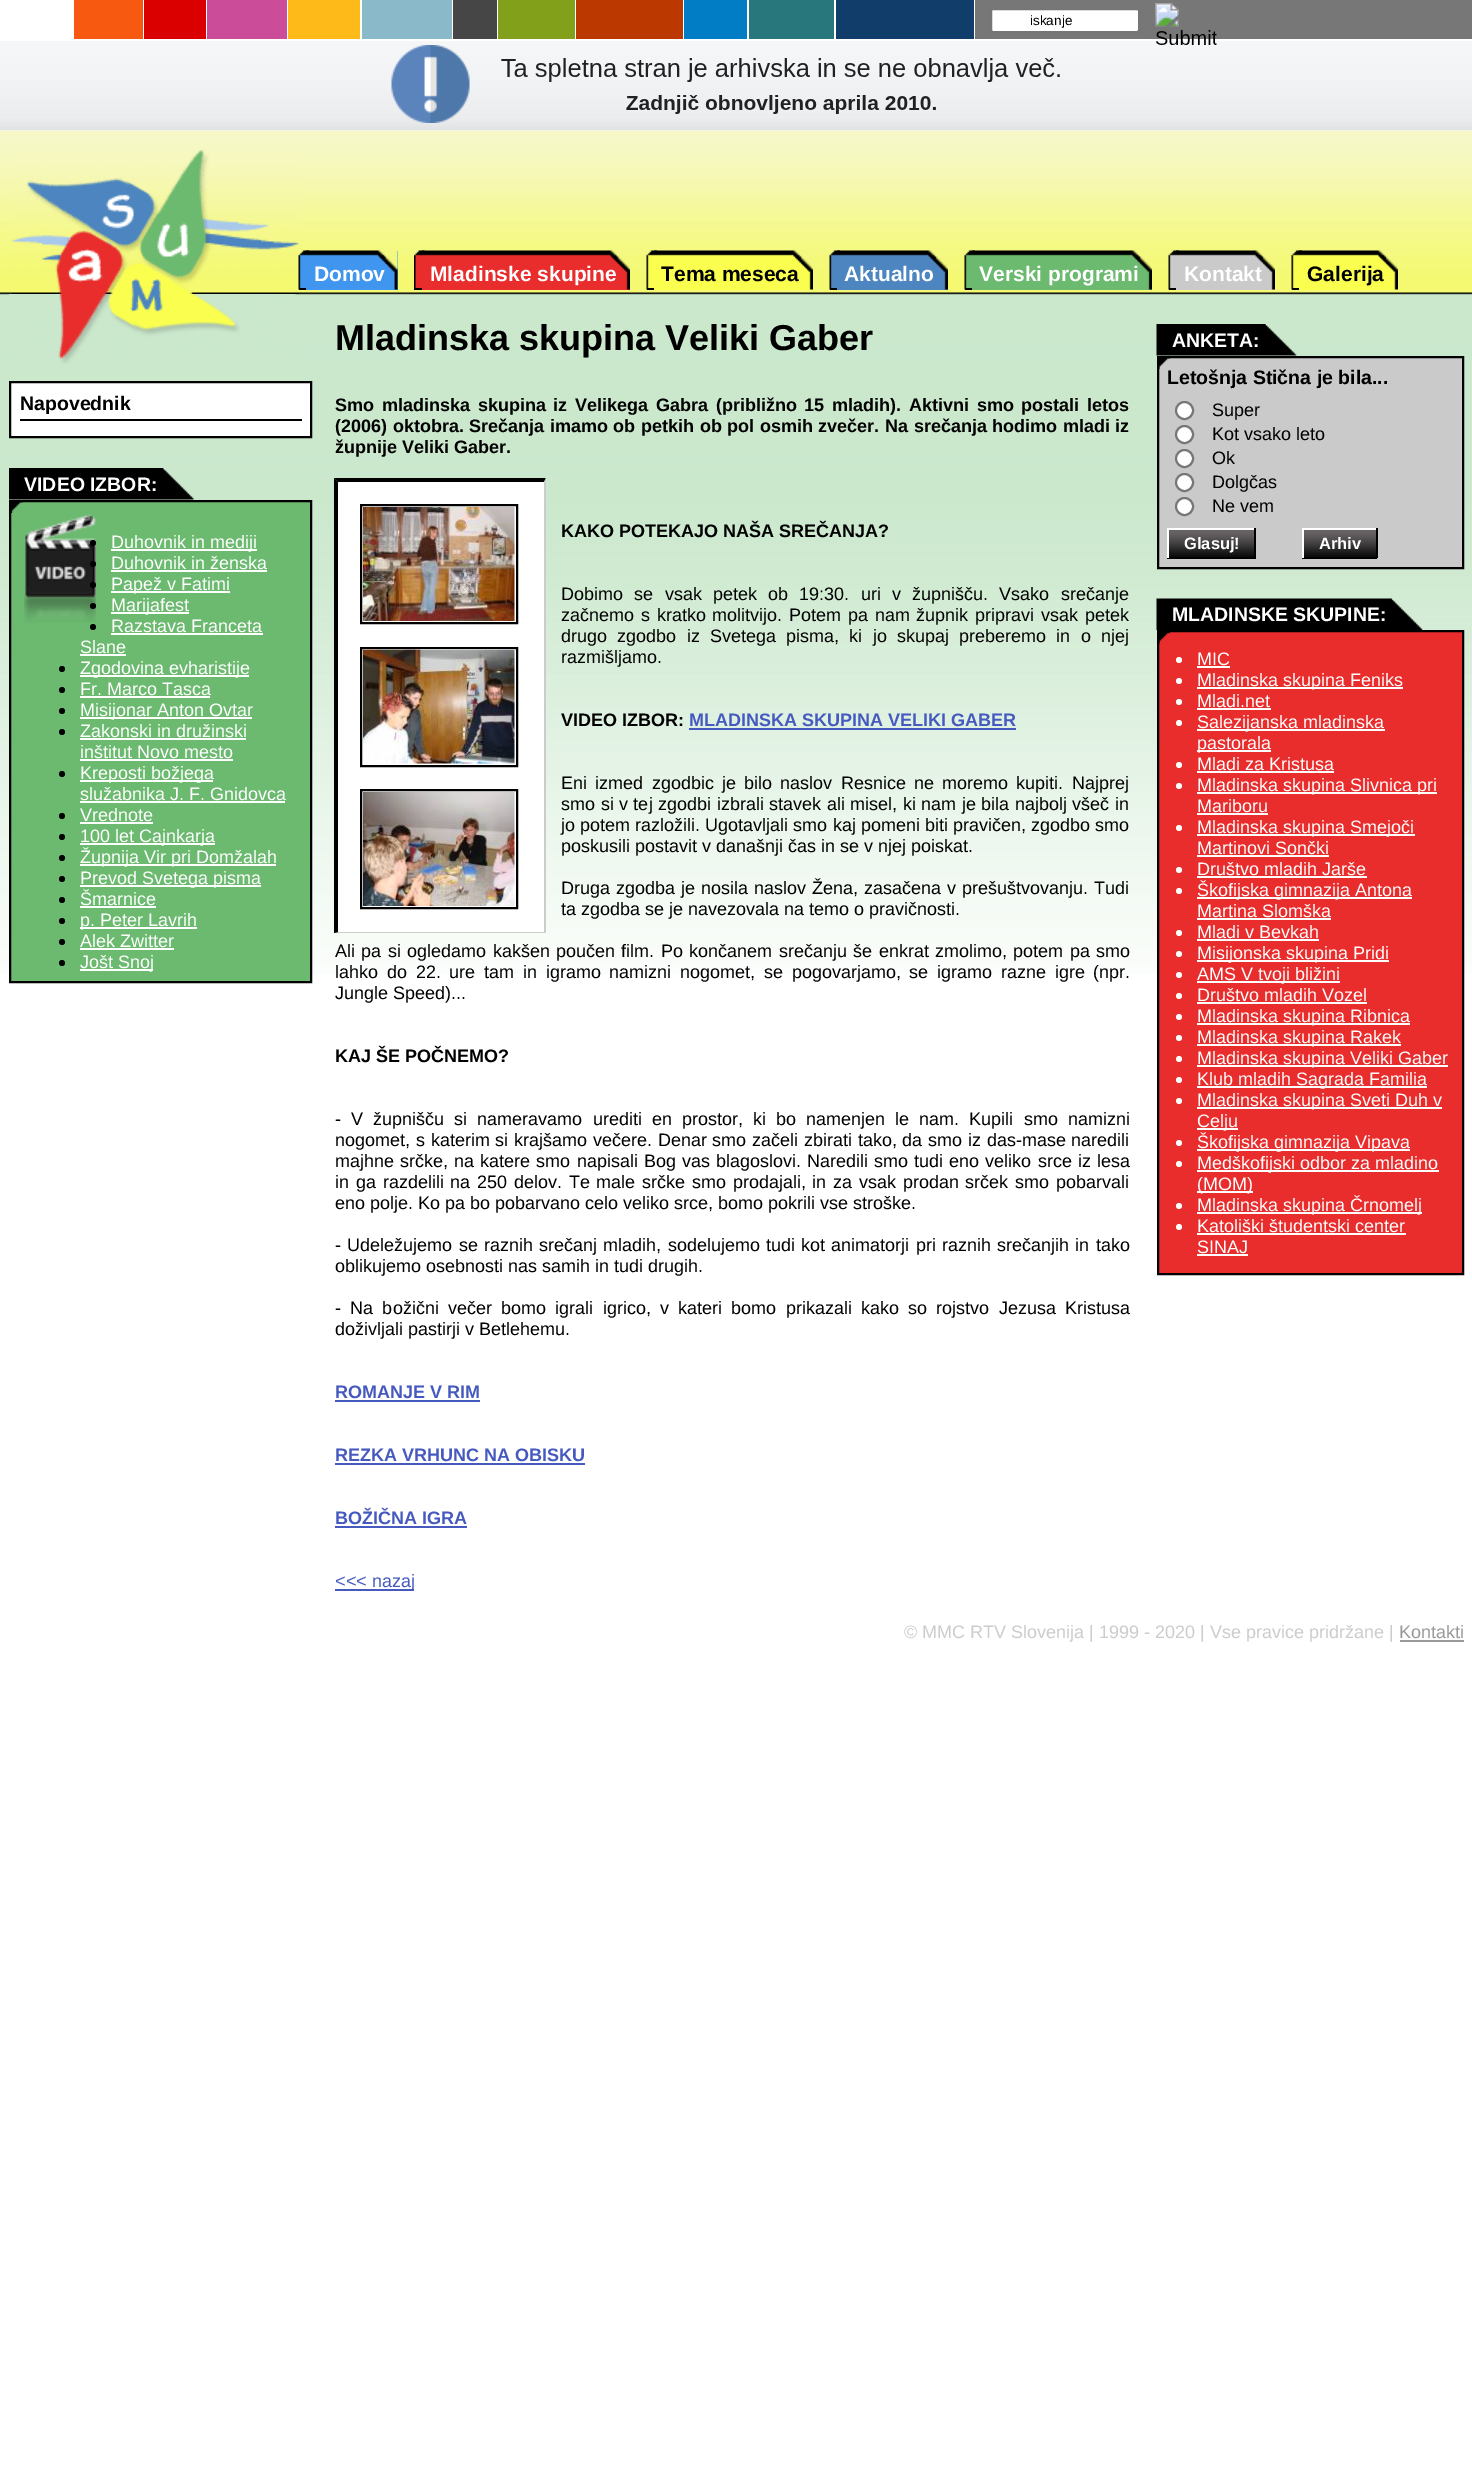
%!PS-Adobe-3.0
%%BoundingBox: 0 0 1472 2475
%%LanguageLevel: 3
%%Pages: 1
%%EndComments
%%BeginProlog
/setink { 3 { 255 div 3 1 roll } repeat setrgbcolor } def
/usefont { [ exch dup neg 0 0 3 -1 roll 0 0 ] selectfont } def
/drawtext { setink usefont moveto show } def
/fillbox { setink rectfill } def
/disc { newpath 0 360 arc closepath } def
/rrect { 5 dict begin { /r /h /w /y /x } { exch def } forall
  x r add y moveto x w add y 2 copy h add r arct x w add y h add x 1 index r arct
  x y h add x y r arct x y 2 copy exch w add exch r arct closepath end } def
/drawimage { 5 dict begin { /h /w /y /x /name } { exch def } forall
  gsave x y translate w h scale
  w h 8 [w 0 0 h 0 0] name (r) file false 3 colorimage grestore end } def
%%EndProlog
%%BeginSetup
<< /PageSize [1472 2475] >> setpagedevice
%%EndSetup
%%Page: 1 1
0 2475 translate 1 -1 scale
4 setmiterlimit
0 0 1472 2475 255 255 255 fillbox
(assets/img1.rgb) 0 130 1472 844 drawimage
975 0 497 39 119 119 119 fillbox
74 0 69 39 247 89 16 fillbox
144 0 62 39 219 0 0 fillbox
207 0 80 39 203 76 153 fillbox
288 0 72 39 253 186 24 fillbox
362 0 90 39 138 185 202 fillbox
453 0 44 39 70 70 70 fillbox
498 0 77 39 131 160 27 fillbox
576 0 107 39 187 56 0 fillbox
684 0 63 39 0 125 197 fillbox
749 0 85 39 39 119 125 fillbox
836 0 138 39 16 61 105 fillbox
255 255 255 setink
991 9 148 23 2 rrect gsave fill grestore
118 118 118 setink
2 setlinewidth
stroke
(iskanje) 1030 25 /LiberationSans-Regular 13.5 0 0 0 drawtext
(assets/img3.rgb) 0 41 1472 90 drawimage
(assets/img2.rgb) 1155 3 62 42 drawimage
(assets/img4.rgb) 12 149 287 145 drawimage
299 254 7 34 64 150 238 fillbox
(assets/img5.rgb) 298 250 11 40 drawimage
299 288 7 2 0 0 0 fillbox
306 251 92 39 64 150 238 fillbox
(assets/img6.rgb) 306 250 92 40 drawimage
(Domov) 314 281 /LiberationSans-Bold 21 255 255 255 drawtext
415 254 7 34 233 44 44 fillbox
(assets/img7.rgb) 414 250 11 38 drawimage
414 288 8 2 0 0 0 fillbox
422 254 208 36 233 44 44 fillbox
(assets/img8.rgb) 421 250 209 40 drawimage
(Mladinske skupine) 430 281 /LiberationSans-Bold 21 255 255 255 drawtext
647 254 7 34 250 255 79 fillbox
(assets/img9.rgb) 646 250 11 40 drawimage
647 288 7 2 0 0 0 fillbox
654 254 159 36 250 255 79 fillbox
(assets/img10.rgb) 654 250 159 40 drawimage
(Tema meseca) 661 281 /LiberationSans-Bold 21 0 0 0 drawtext
830 254 7 34 76 133 191 fillbox
(assets/img11.rgb) 829 250 11 40 drawimage
830 288 7 2 0 0 0 fillbox
837 254 111 36 76 133 191 fillbox
(assets/img12.rgb) 837 250 111 40 drawimage
(Aktualno) 844 281 /LiberationSans-Bold 21 255 255 255 drawtext
965 254 7 34 107 186 112 fillbox
(assets/img13.rgb) 964 250 11 40 drawimage
965 288 7 2 0 0 0 fillbox
972 254 180 36 107 186 112 fillbox
(assets/img14.rgb) 972 250 180 40 drawimage
(Verski programi) 979 281 /LiberationSans-Bold 21 255 255 255 drawtext
1169 254 7 34 202 202 202 fillbox
(assets/img15.rgb) 1168 250 11 40 drawimage
1169 288 7 2 0 0 0 fillbox
1176 254 99 36 202 202 202 fillbox
(assets/img16.rgb) 1176 250 99 40 drawimage
(Kontakt) 1184 281 /LiberationSans-Bold 21 255 255 255 drawtext
1292 254 7 34 250 255 79 fillbox
(assets/img9.rgb) 1291 250 11 40 drawimage
1292 288 7 2 0 0 0 fillbox
1299 254 99 36 250 255 79 fillbox
(assets/img17.rgb) 1299 250 99 40 drawimage
(Galerija) 1307 281 /LiberationSans-Bold 21 0 0 0 drawtext
(assets/img18.rgb) 9 294 287 70 drawimage
255 255 255 setink
10 382 moveto 311 382 lineto 311 437 lineto 10 437 lineto closepath gsave fill grestore
0 0 0 setink
stroke
20 419 282 2 0 0 0 fillbox
(Napovednik) 20 410 /LiberationSans-Bold 19.5 0 0 0 drawtext
(assets/img19.rgb) 9 468 185 32 drawimage
(VIDEO IZBOR:) 24 491 /LiberationSans-Bold 19.5 255 255 255 drawtext
11 502 299 479 107 186 112 fillbox
(assets/img20.rgb) 11 502 12 11 drawimage
0 0 0 setink
10 501 301 481 rectstroke
(assets/img21.rgb) 24 514 72 109 drawimage
93 543 3 disc fill
111 549 146 2 255 255 255 fillbox
(Duhovnik in mediji) 111 548 /LiberationSans-Regular 18 255 255 255 drawtext
0 0 0 setink
93 564 3 disc fill
(Duhovnik in ženska) 111 569 /LiberationSans-Regular 18 255 255 255 drawtext
111 570 156 2 255 255 255 fillbox
0 0 0 setink
93 585 3 disc fill
111 591 119 2 255 255 255 fillbox
(Papež v Fatimi) 111 590 /LiberationSans-Regular 18 255 255 255 drawtext
0 0 0 setink
93 606 3 disc fill
111 612 78 2 255 255 255 fillbox
(Marijafest) 111 611 /LiberationSans-Regular 18 255 255 255 drawtext
0 0 0 setink
93 627 3 disc fill
(Razstava Franceta) 111 632 /LiberationSans-Regular 18 255 255 255 drawtext
111 633 152 2 255 255 255 fillbox
(Slane) 80 653 /LiberationSans-Regular 18 255 255 255 drawtext
80 654 46 2 255 255 255 fillbox
0 0 0 setink
62 669 3 disc fill
80 675 169 2 255 255 255 fillbox
(Zgodovina evharistije) 80 674 /LiberationSans-Regular 18 255 255 255 drawtext
0 0 0 setink
62 690 3 disc fill
(Fr. Marco Tasca) 80 695 /LiberationSans-Regular 18 255 255 255 drawtext
80 696 130 2 255 255 255 fillbox
0 0 0 setink
62 711 3 disc fill
80 717 172 2 255 255 255 fillbox
(Misijonar Anton Ovtar) 80 716 /LiberationSans-Regular 18 255 255 255 drawtext
0 0 0 setink
62 732 3 disc fill
(Zakonski in družinski) 80 737 /LiberationSans-Regular 18 255 255 255 drawtext
80 738 166 2 255 255 255 fillbox
(inštitut Novo mesto) 80 758 /LiberationSans-Regular 18 255 255 255 drawtext
80 759 153 2 255 255 255 fillbox
0 0 0 setink
62 774 3 disc fill
80 780 133 2 255 255 255 fillbox
(Kreposti božjega) 80 779 /LiberationSans-Regular 18 255 255 255 drawtext
(služabnika J. F. Gnidovca) 80 800 /LiberationSans-Regular 18 255 255 255 drawtext
80 801 205 2 255 255 255 fillbox
0 0 0 setink
62 816 3 disc fill
(Vrednote) 80 821 /LiberationSans-Regular 18 255 255 255 drawtext
80 822 73 2 255 255 255 fillbox
0 0 0 setink
62 837 3 disc fill
80 843 135 2 255 255 255 fillbox
(100 let Cajnkarja) 80 842 /LiberationSans-Regular 18 255 255 255 drawtext
0 0 0 setink
62 858 3 disc fill
80 864 196 2 255 255 255 fillbox
(Župnija Vir pri Domžalah) 80 863 /LiberationSans-Regular 18 255 255 255 drawtext
0 0 0 setink
62 879 3 disc fill
80 885 181 2 255 255 255 fillbox
(Prevod Svetega pisma) 80 884 /LiberationSans-Regular 18 255 255 255 drawtext
0 0 0 setink
62 900 3 disc fill
(Šmarnice) 80 905 /LiberationSans-Regular 18 255 255 255 drawtext
80 906 76 2 255 255 255 fillbox
0 0 0 setink
62 921 3 disc fill
80 927 117 2 255 255 255 fillbox
(p. Peter Lavrih) 80 926 /LiberationSans-Regular 18 255 255 255 drawtext
0 0 0 setink
62 942 3 disc fill
(Alek Zwitter) 80 947 /LiberationSans-Regular 18 255 255 255 drawtext
80 948 94 2 255 255 255 fillbox
0 0 0 setink
62 963 3 disc fill
80 969 73 2 255 255 255 fillbox
(Jošt Snoj) 80 968 /LiberationSans-Regular 18 255 255 255 drawtext
(Mladinska skupina Veliki Gaber) 335 350 /LiberationSans-Bold 36 0 0 0 drawtext
/LiberationSans-Bold 18 usefont
335 411 moveto 2.75 0 32 (Smo mladinska skupina iz Velikega Gabra \(približno 15 mladih\). Aktivni smo postali letos) widthshow
335 432 moveto 0.6 0 32 (\(2006\) oktobra. Srečanja imamo ob petkih ob pol osmih zvečer. Na srečanja hodimo mladi iz) widthshow
(župnije Veliki Gaber.) 335 453 /LiberationSans-Bold 18 0 0 0 drawtext
338 482 206 450 255 255 255 fillbox
0 0 0 setink
334 478 moveto 546 478 lineto 544 482 lineto 338 482 lineto closepath fill
204 204 204 setink
546 478 moveto 546 933 lineto 544 932 lineto 544 482 lineto closepath fill
546 933 moveto 334 933 lineto 338 932 lineto 544 932 lineto closepath fill
0 0 0 setink
334 933 moveto 334 478 lineto 338 482 lineto 338 932 lineto closepath fill
361 505 156 118 rectstroke
(assets/img22.rgb) 363 507 152 114 drawimage
361 648 156 118 rectstroke
(assets/img23.rgb) 363 649 152 115 drawimage
361 790 156 118 rectstroke
(assets/img24.rgb) 363 792 152 114 drawimage
(KAKO POTEKAJO NAŠA SREČANJA?) 561 537 /LiberationSans-Bold 18 0 0 0 drawtext
/LiberationSans-Regular 18 usefont
561 600 moveto 6.25 0 32 (Dobimo se vsak petek ob 19:30. uri v župnišču. Vsako srečanje) widthshow
561 621 moveto 1.75 0 32 (začnemo s kratko molitvijo. Potem pa nam župnik pripravi vsak petek) widthshow
561 642 moveto 5.25 0 32 (drugo zgodbo iz Svetega pisma, ki jo skupaj preberemo in o njej) widthshow
(razmišljamo.) 561 663 /LiberationSans-Regular 18 0 0 0 drawtext
(VIDEO IZBOR:) 561 726 /LiberationSans-Bold 18 0 0 0 drawtext
(MLADINSKA SKUPINA VELIKI GABER) 689 726 /LiberationSans-Bold 18 69 89 191 drawtext
689 728 327 2 69 89 191 fillbox
/LiberationSans-Regular 18 usefont
0 0 0 setink
561 789 moveto 3.25 0 32 (Eni izmed zgodbic je bilo naslov Resnice ne moremo kupiti. Najprej) widthshow
561 810 moveto 0.5 0 32 (smo si v tej zgodbi izbrali stavek ali misel, ki nam je bila najbolj všeč in) widthshow
561 831 moveto 0.1 0 32 (jo potem razložili. Ugotavljali smo kaj pomeni biti pravičen, zgodbo smo) widthshow
(poskusili postavit v današnji čas in se v njej poiskat.) 561 852 /LiberationSans-Regular 18 0 0 0 drawtext
561 894 moveto 1 0 32 (Druga zgodba je nosila naslov Žena, zasačena v prešuštvovanju. Tudi) widthshow
(ta zgodba se je navezovala na temo o pravičnosti.) 561 915 /LiberationSans-Regular 18 0 0 0 drawtext
335 957 moveto 1.4 0 32 (Ali pa si ogledamo kakšen poučen film. Po končanem srečanju še enkrat zmolimo, potem pa smo) widthshow
335 978 moveto 3.75 0 32 (lahko do 22. ure tam in igramo namizni nogomet, se pogovarjamo, se igramo razne igre \(npr.) widthshow
(Jungle Speed\)...) 335 999 /LiberationSans-Regular 18 0 0 0 drawtext
(KAJ ŠE POČNEMO?) 335 1062 /LiberationSans-Bold 18 0 0 0 drawtext
/LiberationSans-Regular 18 usefont
335 1125 moveto 5.1 0 32 (- V župnišču si nameravamo urediti en prostor, ki bo namenjen le nam. Kupili smo namizni) widthshow
335 1146 moveto 0.75 0 32 (nogomet, s katerim si krajšamo večere. Denar smo začeli zbirati tako, da smo iz das-mase naredili) widthshow
335 1167 moveto 1.1 0 32 (majhne srčke, na katere smo napisali Bog vas blagoslovi. Naredili smo tudi eno veliko srce iz lesa) widthshow
335 1188 moveto 1.75 0 32 (in ga razdelili na 250 delov. Te male srčke smo prodajali, in za vsak prodan srček smo pobarvali) widthshow
(eno polje. Ko pa bo pobarvano celo veliko srce, bomo pokrili vse stroške.) 335 1209 /LiberationSans-Regular 18 0 0 0 drawtext
335 1251 moveto 1.25 0 32 (- Udeležujemo se raznih srečanj mladih, sodelujemo tudi kot animatorji pri raznih srečanjih in tako) widthshow
(oblikujemo osebnosti nas samih in tudi drugih.) 335 1272 /LiberationSans-Regular 18 0 0 0 drawtext
335 1314 moveto 4.25 0 32 (- Na božični večer bomo igrali igrico, v kateri bomo prikazali kako so rojstvo Jezusa Kristusa) widthshow
(doživljali pastirji v Betlehemu.) 335 1335 /LiberationSans-Regular 18 0 0 0 drawtext
(ROMANJE V RIM) 335 1398 /LiberationSans-Bold 18 69 89 191 drawtext
335 1400 145 2 69 89 191 fillbox
(REZKA VRHUNC NA OBISKU) 335 1461 /LiberationSans-Bold 18 69 89 191 drawtext
335 1463 250 2 69 89 191 fillbox
(BOŽIČNA IGRA) 335 1524 /LiberationSans-Bold 18 69 89 191 drawtext
335 1526 132 2 69 89 191 fillbox
335 1589 79 2 69 89 191 fillbox
(<<< nazaj) 335 1587 /LiberationSans-Regular 18 69 89 191 drawtext
(assets/img25.rgb) 1156 324 141 32 drawimage
(ANKETA:) 1172 347 /LiberationSans-Bold 19.5 255 255 255 drawtext
1159 358 303 209 202 202 202 fillbox
(assets/img26.rgb) 1159 358 11 11 drawimage
0 0 0 setink
1158 357 305 211 rectstroke
(Letošnja Stična je bila...) 1167 384 /LiberationSans-Bold 19.5 0 0 0 drawtext
255 255 255 setink
1184.5 410.5 8.5 disc gsave fill grestore
118 118 118 setink
stroke
(Super) 1212 416 /LiberationSans-Regular 18 0 0 0 drawtext
255 255 255 setink
1184.5 434.5 8.5 disc gsave fill grestore
118 118 118 setink
stroke
(Kot vsako leto) 1212 440 /LiberationSans-Regular 18 0 0 0 drawtext
255 255 255 setink
1184.5 458.5 8.5 disc gsave fill grestore
118 118 118 setink
stroke
(Ok) 1212 464 /LiberationSans-Regular 18 0 0 0 drawtext
255 255 255 setink
1184.5 482.5 8.5 disc gsave fill grestore
118 118 118 setink
stroke
(Dolgčas) 1212 488 /LiberationSans-Regular 18 0 0 0 drawtext
255 255 255 setink
1184.5 506.5 8.5 disc gsave fill grestore
118 118 118 setink
stroke
(Ne vem) 1212 512 /LiberationSans-Regular 18 0 0 0 drawtext
(assets/img27.rgb) 1169 530 85 27 drawimage
1167 528 89 2 255 255 255 fillbox
1254 528 2 30 0 0 0 fillbox
1167 557 89 2 0 0 0 fillbox
1167 528 2 30 255 255 255 fillbox
(Glasuj!) 1184 549 /LiberationSans-Bold 16.5 255 255 255 drawtext
(assets/img28.rgb) 1304 530 72 27 drawimage
1302 528 75 2 255 255 255 fillbox
1376 528 2 30 0 0 0 fillbox
1302 557 75 2 0 0 0 fillbox
1302 528 2 30 255 255 255 fillbox
(Arhiv) 1319 549 /LiberationSans-Bold 16.5 255 255 255 drawtext
(assets/img29.rgb) 1156 598 267 32 drawimage
(MLADINSKE SKUPINE:) 1172 621 /LiberationSans-Bold 19.5 255 255 255 drawtext
1159 632 303 641 233 44 44 fillbox
(assets/img30.rgb) 1159 632 11 12 drawimage
0 0 0 setink
1158 631 305 643 rectstroke
255 255 255 setink
1179 660 3 disc fill
(MIC) 1197 665 /LiberationSans-Regular 18 255 255 255 drawtext
1197 666 33 2 255 255 255 fillbox
1179 681 3 disc fill
1197 687 206 2 255 255 255 fillbox
(Mladinska skupina Feniks) 1197 686 /LiberationSans-Regular 18 255 255 255 drawtext
1179 702 3 disc fill
(Mladi.net) 1197 707 /LiberationSans-Regular 18 255 255 255 drawtext
1197 708 74 2 255 255 255 fillbox
1179 723 3 disc fill
1197 729 188 2 255 255 255 fillbox
(Salezijanska mladinska) 1197 728 /LiberationSans-Regular 18 255 255 255 drawtext
1197 750 74 2 255 255 255 fillbox
(pastorala) 1197 749 /LiberationSans-Regular 18 255 255 255 drawtext
1179 765 3 disc fill
(Mladi za Kristusa) 1197 770 /LiberationSans-Regular 18 255 255 255 drawtext
1197 771 137 2 255 255 255 fillbox
1179 786 3 disc fill
1197 792 240 2 255 255 255 fillbox
(Mladinska skupina Slivnica pri) 1197 791 /LiberationSans-Regular 18 255 255 255 drawtext
(Mariboru) 1197 812 /LiberationSans-Regular 18 255 255 255 drawtext
1197 813 71 2 255 255 255 fillbox
1179 828 3 disc fill
1197 834 218 2 255 255 255 fillbox
(Mladinska skupina Smejoči) 1197 833 /LiberationSans-Regular 18 255 255 255 drawtext
(Martinovi Sončki) 1197 854 /LiberationSans-Regular 18 255 255 255 drawtext
1197 855 132 2 255 255 255 fillbox
1179 870 3 disc fill
(Društvo mladih Jarše) 1197 875 /LiberationSans-Regular 18 255 255 255 drawtext
1197 876 170 2 255 255 255 fillbox
1179 891 3 disc fill
1197 897 215 2 255 255 255 fillbox
(Škofijska gimnazija Antona) 1197 896 /LiberationSans-Regular 18 255 255 255 drawtext
(Martina Slomška) 1197 917 /LiberationSans-Regular 18 255 255 255 drawtext
1197 918 134 2 255 255 255 fillbox
1179 933 3 disc fill
(Mladi v Bevkah) 1197 938 /LiberationSans-Regular 18 255 255 255 drawtext
1197 939 122 2 255 255 255 fillbox
1179 954 3 disc fill
1197 960 192 2 255 255 255 fillbox
(Misijonska skupina Pridi) 1197 959 /LiberationSans-Regular 18 255 255 255 drawtext
1179 975 3 disc fill
1197 981 143 2 255 255 255 fillbox
(AMS V tvoji bližini) 1197 980 /LiberationSans-Regular 18 255 255 255 drawtext
1179 996 3 disc fill
(Društvo mladih Vozel) 1197 1001 /LiberationSans-Regular 18 255 255 255 drawtext
1197 1002 170 2 255 255 255 fillbox
1179 1017 3 disc fill
1197 1023 213 2 255 255 255 fillbox
(Mladinska skupina Ribnica) 1197 1022 /LiberationSans-Regular 18 255 255 255 drawtext
1179 1038 3 disc fill
1197 1044 204 2 255 255 255 fillbox
(Mladinska skupina Rakek) 1197 1043 /LiberationSans-Regular 18 255 255 255 drawtext
1179 1059 3 disc fill
1197 1065 251 2 255 255 255 fillbox
(Mladinska skupina Veliki Gaber) 1197 1064 /LiberationSans-Regular 18 255 255 255 drawtext
1179 1080 3 disc fill
1197 1086 230 2 255 255 255 fillbox
(Klub mladih Sagrada Familia) 1197 1085 /LiberationSans-Regular 18 255 255 255 drawtext
1179 1101 3 disc fill
1197 1107 245 2 255 255 255 fillbox
(Mladinska skupina Sveti Duh v) 1197 1106 /LiberationSans-Regular 18 255 255 255 drawtext
1197 1128 41 2 255 255 255 fillbox
(Celju) 1197 1127 /LiberationSans-Regular 18 255 255 255 drawtext
1179 1143 3 disc fill
1197 1149 213 2 255 255 255 fillbox
(Škofijska gimnazija Vipava) 1197 1148 /LiberationSans-Regular 18 255 255 255 drawtext
1179 1164 3 disc fill
1197 1170 242 2 255 255 255 fillbox
(Medškofijski odbor za mladino) 1197 1169 /LiberationSans-Regular 18 255 255 255 drawtext
1197 1191 56 2 255 255 255 fillbox
(\(MOM\)) 1197 1190 /LiberationSans-Regular 18 255 255 255 drawtext
1179 1206 3 disc fill
1197 1212 225 2 255 255 255 fillbox
(Mladinska skupina Črnomelj) 1197 1211 /LiberationSans-Regular 18 255 255 255 drawtext
1179 1227 3 disc fill
(Katoliški študentski center) 1197 1232 /LiberationSans-Regular 18 255 255 255 drawtext
1197 1233 209 2 255 255 255 fillbox
(SINAJ) 1197 1253 /LiberationSans-Regular 18 255 255 255 drawtext
1197 1254 51 2 255 255 255 fillbox
(© MMC RTV Slovenija | 1999 - 2020 | Vse pravice pridržane |) 904 1638 /LiberationSans-Regular 18 204 204 204 drawtext
(Kontakti) 1399 1638 /LiberationSans-Regular 18 153 153 153 drawtext
1400 1640 64 2 153 153 153 fillbox
showpage
%%EOF
